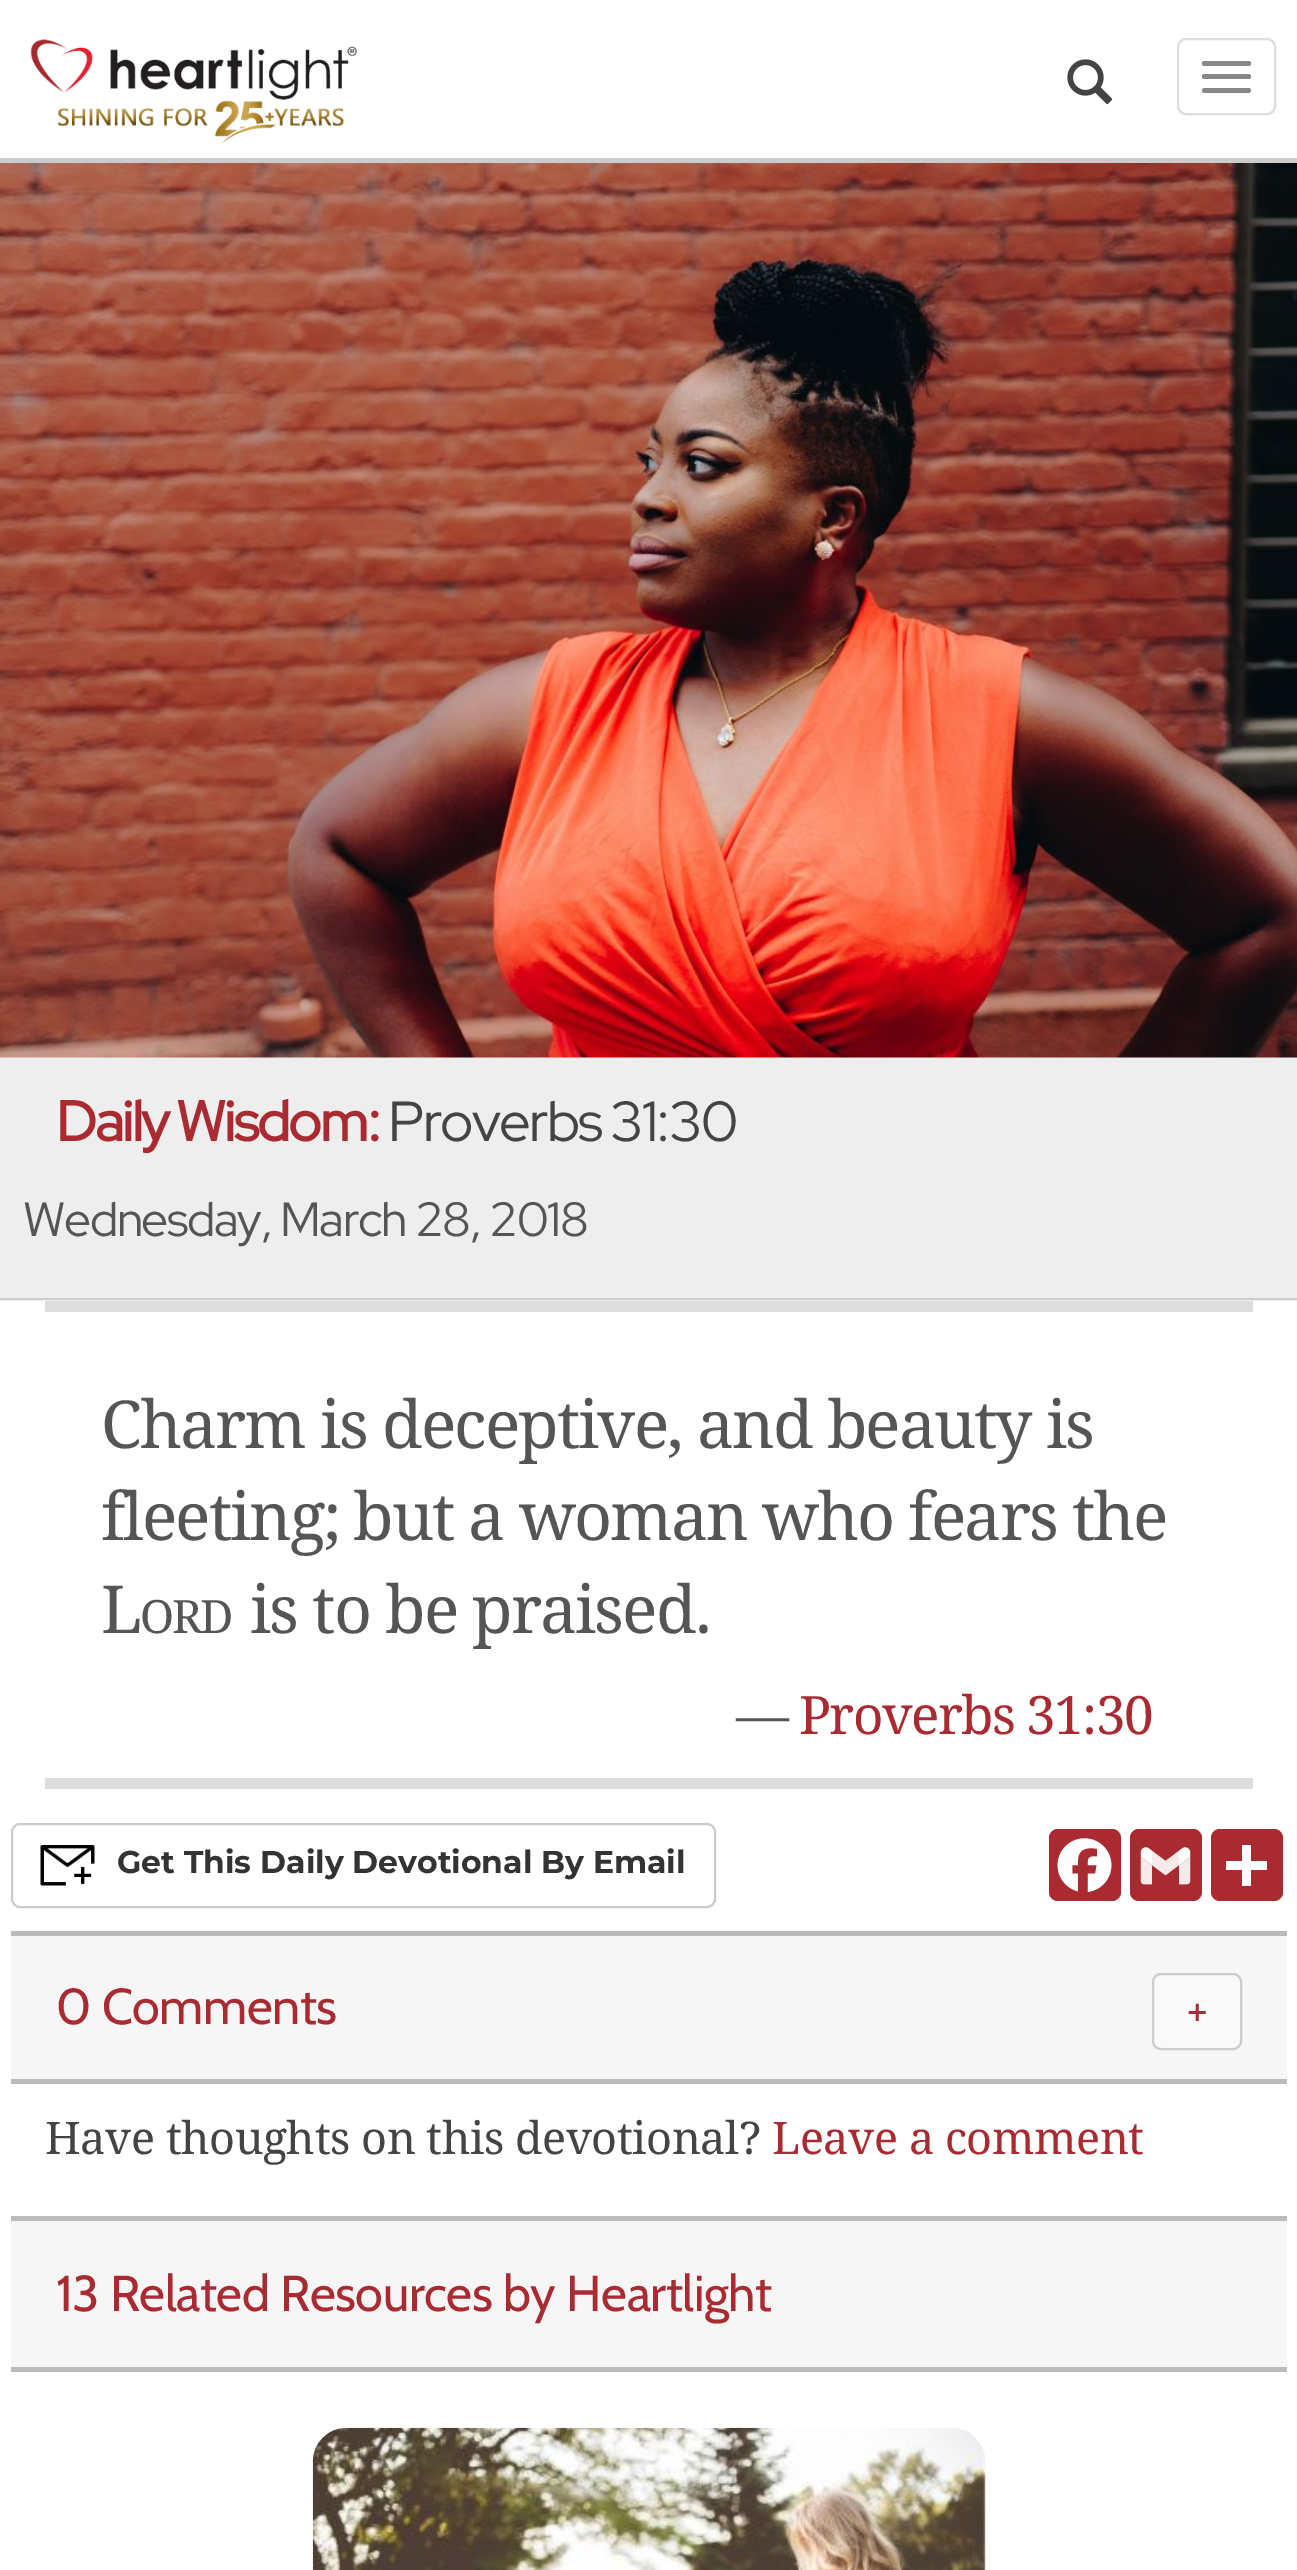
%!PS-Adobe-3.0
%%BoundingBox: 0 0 1297 2570
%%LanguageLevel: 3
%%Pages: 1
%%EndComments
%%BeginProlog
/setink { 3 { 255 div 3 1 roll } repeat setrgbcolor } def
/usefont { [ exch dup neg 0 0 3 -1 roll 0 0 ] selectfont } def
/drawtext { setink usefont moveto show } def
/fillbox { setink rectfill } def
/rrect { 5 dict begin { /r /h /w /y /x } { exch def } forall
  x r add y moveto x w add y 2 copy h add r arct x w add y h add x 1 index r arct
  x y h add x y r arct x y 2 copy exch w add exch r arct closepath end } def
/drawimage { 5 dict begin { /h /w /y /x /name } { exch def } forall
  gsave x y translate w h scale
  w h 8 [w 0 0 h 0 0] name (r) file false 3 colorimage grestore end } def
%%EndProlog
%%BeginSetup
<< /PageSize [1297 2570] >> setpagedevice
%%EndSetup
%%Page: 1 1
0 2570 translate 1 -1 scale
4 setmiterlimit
0 0 1297 2570 255 255 255 fillbox
0 158 1297 5 204 204 204 fillbox
(assets/img1.rgb) 30 39 328 105 drawimage
(assets/img2.rgb) 1067 59 46 46 drawimage
221 221 221 setink
2 setlinewidth
1178 39 97 75 8 rrect stroke
136 136 136 setink
1202 61 49 5 2.5 rrect fill
1202 74 49 5 2.5 rrect fill
1202 88 49 5 2.5 rrect fill
0 1057 1297 244 238 238 238 fillbox
0 1298 1297 2 204 204 204 fillbox
(assets/img3.rgb) 0 163 1297 895 drawimage
/RedHatDisplay-Bold 56.25 usefont
169 42 49 setink
56 1141 moveto -2 0 32 -1.75 0 (Daily Wisdom:) awidthshow
/RedHatDisplay-Regular 56.25 usefont
68 68 68 setink
388 1141 moveto -2 0 32 -1.75 0 (Proverbs 31:30) awidthshow
/RedHatDisplay-Regular 48 usefont
85 85 85 setink
23 1236 moveto -1.4 0 (Wednesday, March 28, 2018) ashow
45 1301 1208 11 221 221 221 fillbox
45 1778 1208 11 221 221 221 fillbox
/DroidSerif-Regular 66.2 usefont
85 85 85 setink
101 1448 moveto -2 0 (Charm is deceptive, and beauty is) ashow
101 1540 moveto -2 0 (fleeting; but a woman who fears the) ashow
101 1633 moveto -2 0 (L) ashow
/DroidSerif-Regular 46 usefont
140 1633 moveto -2 0 (ORD) ashow
/DroidSerif-Regular 66.2 usefont
250 1633 moveto -2 0 (is to be praised.) ashow
/DroidSerif-Regular 53 usefont
736 1734 moveto -1.6 0 (—) ashow
169 42 49 setink
799 1734 moveto -1.6 0 (Proverbs 31:30) ashow
204 204 204 setink
12 1824 703 83 8 rrect stroke
(assets/img4.rgb) 40 1845 55 41 drawimage
(Get This Daily Devotional By Email) 117 1873 /Montserrat-Bold 31.5 51 51 51 drawtext
169 42 49 setink
1049 1829 72 72 9 rrect fill
(assets/img5.rgb) 1057 1838 55 54 drawimage
1130 1829 72 72 9 rrect fill
(assets/img6.rgb) 1140 1847 51 38 drawimage
1211 1829 72 72 9 rrect fill
1242 1845 9 41 255 255 255 fillbox
1226 1861 41 9 255 255 255 fillbox
11 1936 1276 143 246 246 246 fillbox
11 1931 1276 5 187 187 187 fillbox
11 2079 1276 5 187 187 187 fillbox
/Cabin-Regular 50.4 usefont
169 42 49 setink
56 2024 moveto -0.5 0 (0 Comments) ashow
249 249 249 setink
1153 1974 88 75 8 rrect gsave fill grestore
204 204 204 setink
stroke
(＋) 1181 2022 /WenQuanYiZenHei-Bold 31.5 169 42 49 drawtext
/DroidSerif-Regular 45 usefont
68 68 68 setink
45 2154 moveto -0.45 0 (Have thoughts on this devotional?) ashow
169 42 49 setink
772 2154 moveto -0.45 0 (Leave a comment) ashow
11 2221 1276 146 246 246 246 fillbox
11 2216 1276 5 187 187 187 fillbox
11 2367 1276 5 187 187 187 fillbox
/Cabin-Regular 50.4 usefont
169 42 49 setink
56 2311 moveto -0.5 0 (13 Related Resources by Heartlight) ashow
(assets/img7.rgb) 312 2427 674 143 drawimage
showpage
%%EOF
